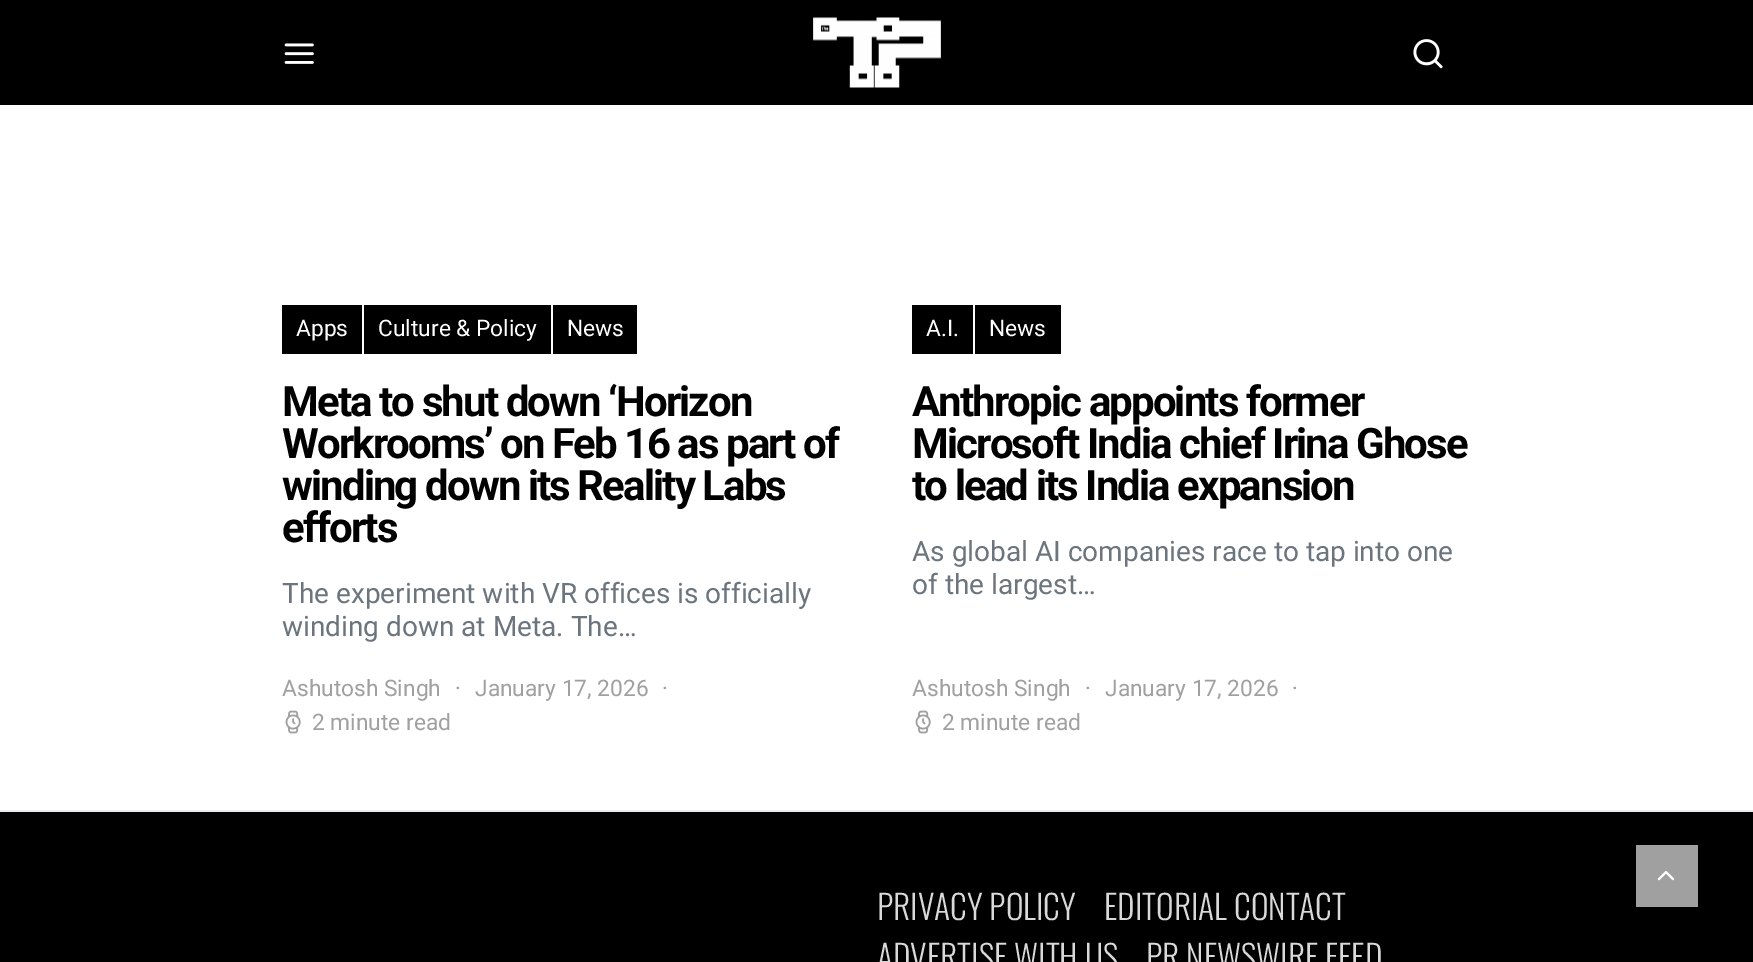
%!PS-Adobe-3.0
%%BoundingBox: 0 0 1753 962
%%LanguageLevel: 3
%%Pages: 1
%%EndComments
%%BeginProlog
/setink { 3 { 255 div 3 1 roll } repeat setrgbcolor } def
/usefont { [ exch dup neg 0 0 3 -1 roll 0 0 ] selectfont } def
/drawtext { setink usefont moveto show } def
/fillbox { setink rectfill } def
/drawimage { 5 dict begin { /h /w /y /x /name } { exch def } forall
  gsave x y translate w h scale
  w h 8 [w 0 0 h 0 0] name (r) file false 3 colorimage grestore end } def
%%EndProlog
%%BeginSetup
<< /PageSize [1753 962] >> setpagedevice
%%EndSetup
%%Page: 1 1
0 962 translate 1 -1 scale
4 setmiterlimit
0 0 1753 962 255 255 255 fillbox
0 0 1753 105 0 0 0 fillbox
(assets/img1.rgb) 284 43 30 21 drawimage
(assets/img2.rgb) 813 17 128 71 drawimage
(assets/img3.rgb) 1413 39 30 30 drawimage
282 305 80 49 0 0 0 fillbox
(Apps) 296 336 /Roboto-Regular 22.75 255 255 255 drawtext
364 305 187 49 0 0 0 fillbox
(Culture & Policy) 378 336 /Roboto-Regular 22.75 255 255 255 drawtext
553 305 84 49 0 0 0 fillbox
(News) 567 336 /Roboto-Regular 22.75 255 255 255 drawtext
/Roboto-Bold 42 usefont
0 0 0 setink
282 416 moveto -1.9 0 (Meta to shut down ‘Horizon) ashow
282 458 moveto -1.9 0 (Workrooms’ on Feb 16 as part of) ashow
282 500 moveto -1.9 0 (winding down its Reality Labs) ashow
282 542 moveto -1.9 0 (efforts) ashow
(The experiment with VR offices is officially) 282 603 /Roboto-Regular 28 108 117 125 drawtext
(winding down at Meta. The…) 282 636 /Roboto-Regular 28 108 117 125 drawtext
(Ashutosh Singh) 282 696 /Roboto-Regular 22.75 160 160 160 drawtext
(·) 455 696 /Roboto-Regular 22.75 160 160 160 drawtext
(January 17, 2026) 475 696 /Roboto-Regular 22.75 160 160 160 drawtext
(·) 662 696 /Roboto-Regular 22.75 160 160 160 drawtext
(assets/img4.rgb) 285 710 16 24 drawimage
(2 minute read) 312 730 /Roboto-Regular 22.75 160 160 160 drawtext
912 305 61 49 0 0 0 fillbox
(A.I.) 926 336 /Roboto-Regular 22.75 255 255 255 drawtext
975 305 86 49 0 0 0 fillbox
(News) 989 336 /Roboto-Regular 22.75 255 255 255 drawtext
/Roboto-Bold 42 usefont
0 0 0 setink
912 416 moveto -1.9 0 (Anthropic appoints former) ashow
912 458 moveto -1.9 0 (Microsoft India chief Irina Ghose) ashow
912 500 moveto -1.9 0 (to lead its India expansion) ashow
(As global AI companies race to tap into one) 912 561 /Roboto-Regular 28 108 117 125 drawtext
(of the largest…) 912 594 /Roboto-Regular 28 108 117 125 drawtext
(Ashutosh Singh) 912 696 /Roboto-Regular 22.75 160 160 160 drawtext
(·) 1085 696 /Roboto-Regular 22.75 160 160 160 drawtext
(January 17, 2026) 1105 696 /Roboto-Regular 22.75 160 160 160 drawtext
(·) 1292 696 /Roboto-Regular 22.75 160 160 160 drawtext
(assets/img4.rgb) 915 710 16 24 drawimage
(2 minute read) 942 730 /Roboto-Regular 22.75 160 160 160 drawtext
0 812 1753 150 0 0 0 fillbox
0 810 1753 2 233 236 239 fillbox
(PRIVACY POLICY) 877 920 /Oswald-Light 33.5 217 217 217 drawtext
(EDITORIAL CONTACT) 1104 920 /Oswald-Light 33.5 217 217 217 drawtext
(ADVERTISE WITH US) 877 970 /Oswald-Light 33.5 217 217 217 drawtext
(PR NEWSWIRE FEED) 1146 970 /Oswald-Light 33.5 217 217 217 drawtext
1636 845 62 62 160 160 160 fillbox
(assets/img5.rgb) 1657 871 18 10 drawimage
showpage
%%EOF
